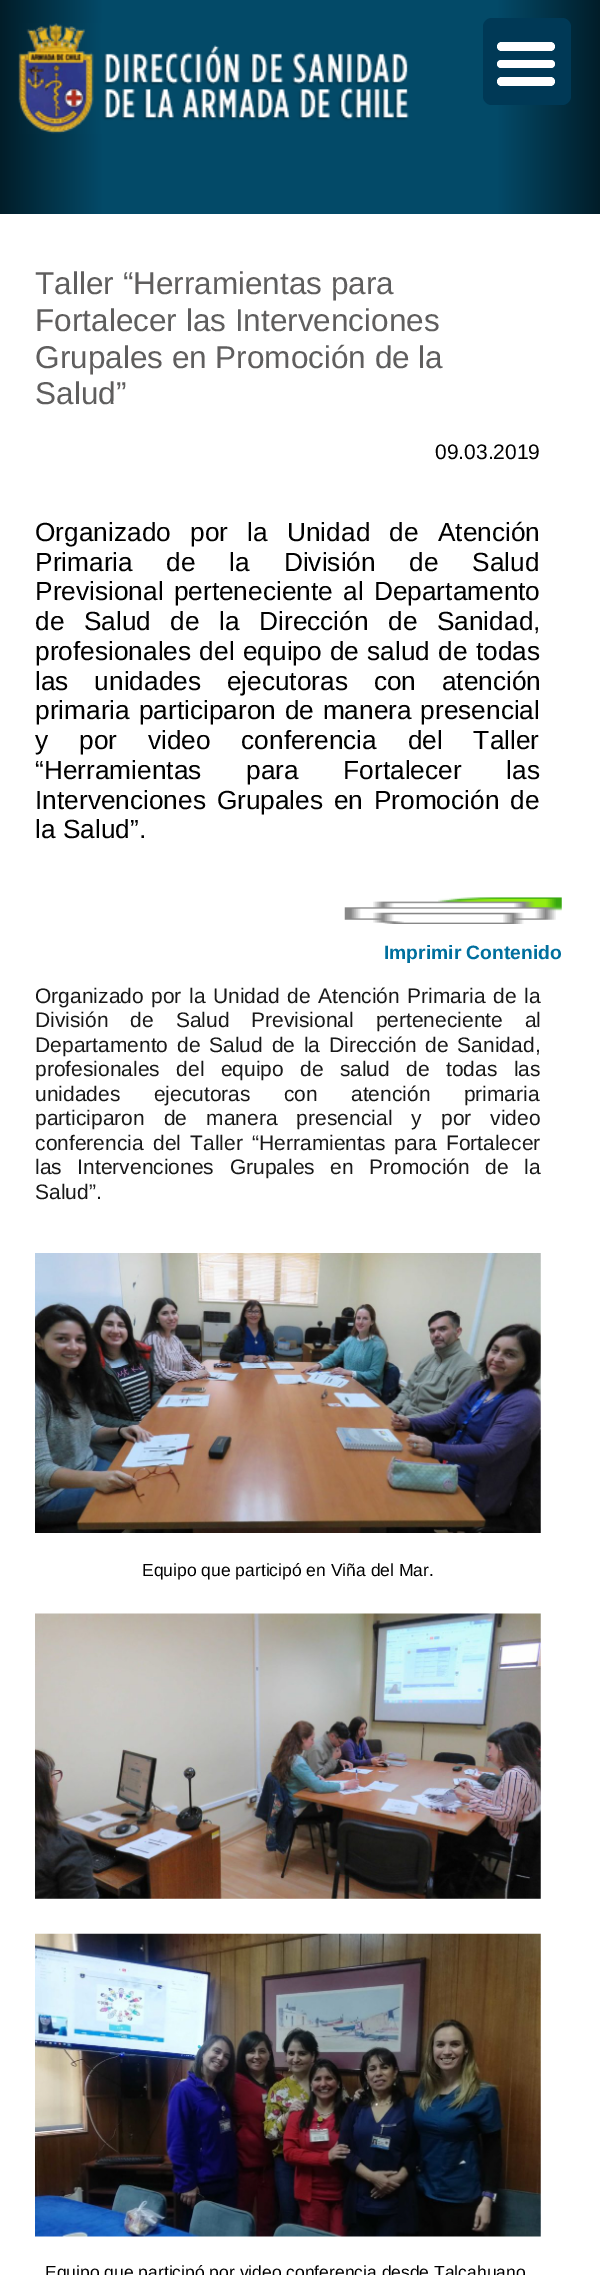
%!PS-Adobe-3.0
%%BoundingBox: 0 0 600 2275
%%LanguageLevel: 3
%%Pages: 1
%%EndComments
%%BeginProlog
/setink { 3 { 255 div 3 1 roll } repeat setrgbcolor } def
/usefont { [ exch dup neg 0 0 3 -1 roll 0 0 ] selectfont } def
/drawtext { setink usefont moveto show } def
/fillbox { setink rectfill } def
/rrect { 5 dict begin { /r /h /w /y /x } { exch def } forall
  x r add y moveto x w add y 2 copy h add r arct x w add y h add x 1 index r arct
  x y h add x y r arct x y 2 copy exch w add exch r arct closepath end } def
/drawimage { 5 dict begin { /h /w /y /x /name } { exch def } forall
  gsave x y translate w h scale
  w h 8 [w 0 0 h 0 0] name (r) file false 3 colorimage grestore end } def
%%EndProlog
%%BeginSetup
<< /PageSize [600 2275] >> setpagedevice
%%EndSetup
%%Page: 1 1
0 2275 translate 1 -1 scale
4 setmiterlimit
0 0 600 2275 255 255 255 fillbox
gsave 0 0 moveto 600 0 lineto 600 214 lineto 0 214 lineto closepath clip newpath
<< /ShadingType 2 /ColorSpace /DeviceRGB /Coords [0 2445 600 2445] /Extend [true true] /Function << /FunctionType 3 /Domain [0 1] /Functions [<< /FunctionType 2 /Domain [0 1] /C0 [0.004 0.114 0.161] /C1 [0.012 0.29 0.408] /N 1 >> << /FunctionType 2 /Domain [0 1] /C0 [0.012 0.29 0.408] /C1 [0.012 0.29 0.408] /N 1 >> << /FunctionType 2 /Domain [0 1] /C0 [0.012 0.29 0.408] /C1 [0.004 0.114 0.161] /N 1 >>] /Bounds [0.17 0.83] /Encode [0 1 0 1 0 1] >> >> shfill grestore
0 57 86 setink
483 18 88 87 9 rrect fill
255 255 255 setink
497 60 58 8 4 rrect fill
497 42 58 9 4.5 rrect fill
497 77 58 9 4.5 rrect fill
(assets/img1.rgb) 18 23 391 111 drawimage
(Taller “Herramientas para) 35 294 /LiberationSans-Regular 31.5 95 94 94 drawtext
(Fortalecer las Intervenciones) 35 331 /LiberationSans-Regular 31.5 95 94 94 drawtext
(Grupales en Promoción de la) 35 368 /LiberationSans-Regular 31.5 95 94 94 drawtext
(Salud”) 35 404 /LiberationSans-Regular 31.5 95 94 94 drawtext
(09.03.2019) 435 459 /LiberationSans-Regular 21 0 0 0 drawtext
/LiberationSans-Regular 26.25 usefont
35 541 moveto 12 0 32 (Organizado por la Unidad de Atención) widthshow
35 571 moveto 26.5 0 32 (Primaria de la División de Salud) widthshow
35 600 moveto 3 0 32 (Previsional perteneciente al Departamento) widthshow
35 630 moveto 12.25 0 32 (de Salud de la Dirección de Sanidad,) widthshow
35 660 moveto 1 0 32 (profesionales del equipo de salud de todas) widthshow
35 690 moveto 18.5 0 32 (las unidades ejecutoras con atención) widthshow
35 719 moveto 1.5 0 32 (primaria participaron de manera presencial) widthshow
35 749 moveto 23.5 0 32 (y por video conferencia del Taller) widthshow
35 779 moveto 37.5 0 32 (“Herramientas para Fortalecer las) widthshow
35 809 moveto 3.5 0 32 (Intervenciones Grupales en Promoción de) widthshow
(la Salud”.) 35 838 /LiberationSans-Regular 26.25 0 0 0 drawtext
(assets/img2.rgb) 344 897 218 27 drawimage
(Imprimir Contenido) 384 959 /LiberationSans-Bold 19.25 0 111 158 drawtext
/LiberationSans-Regular 21 usefont
25 25 25 setink
35 1003 moveto 1.75 0 32 (Organizado por la Unidad de Atención Primaria de la) widthshow
35 1027 moveto 16 0 32 (División de Salud Previsional perteneciente al) widthshow
35 1052 moveto 3 0 32 (Departamento de Salud de la Dirección de Sanidad,) widthshow
35 1076 moveto 10.5 0 32 (profesionales del equipo de salud de todas las) widthshow
35 1101 moveto 27.5 0 32 (unidades ejecutoras con atención primaria) widthshow
35 1125 moveto 13.25 0 32 (participaron de manera presencial y por video) widthshow
35 1150 moveto 3.5 0 32 (conferencia del Taller “Herramientas para Fortalecer) widthshow
35 1174 moveto 9.75 0 32 (las Intervenciones Grupales en Promoción de la) widthshow
(Salud”.) 35 1199 /LiberationSans-Regular 21 25 25 25 drawtext
(assets/img3.rgb) 35 1253 506 280 drawimage
(Equipo que participó en Viña del Mar.) 142 1576 /LiberationSans-Regular 17.5 0 0 0 drawtext
(assets/img4.rgb) 35 1613 506 286 drawimage
(assets/img5.rgb) 35 1933 506 304 drawimage
(Equipo que participó por video conferencia desde Talcahuano) 45 2278 /LiberationSans-Regular 17.5 0 0 0 drawtext
showpage
%%EOF
